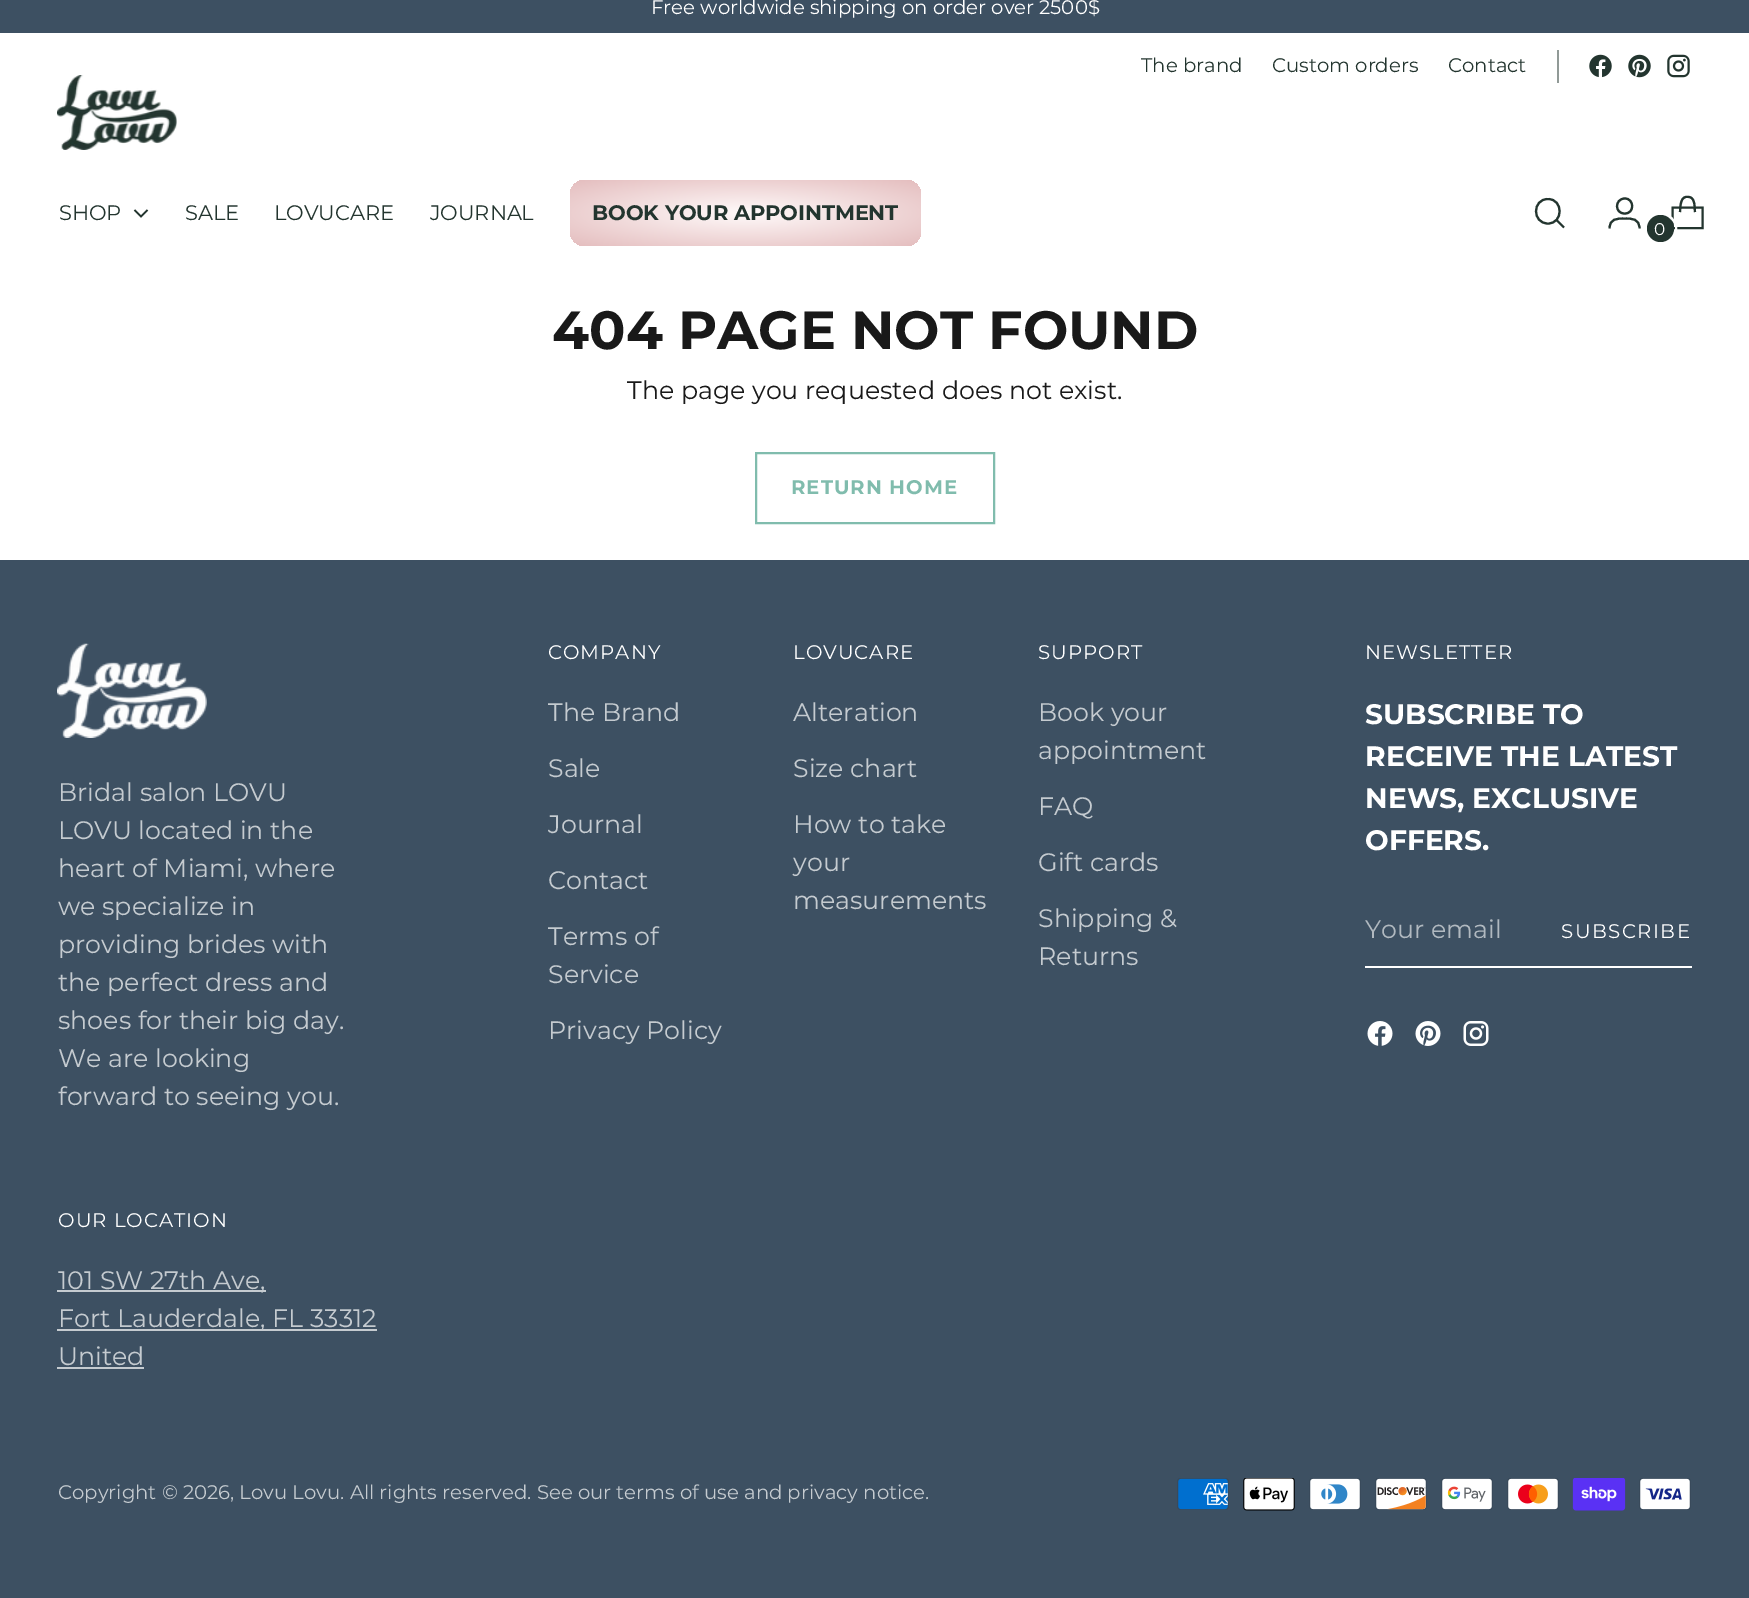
%!PS-Adobe-3.0
%%BoundingBox: 0 0 1749 1598
%%LanguageLevel: 3
%%Pages: 1
%%EndComments
%%BeginProlog
/setink { 3 { 255 div 3 1 roll } repeat setrgbcolor } def
/usefont { [ exch dup neg 0 0 3 -1 roll 0 0 ] selectfont } def
/drawtext { setink usefont moveto show } def
/fillbox { setink rectfill } def
/disc { newpath 0 360 arc closepath } def
/rrect { 5 dict begin { /r /h /w /y /x } { exch def } forall
  x r add y moveto x w add y 2 copy h add r arct x w add y h add x 1 index r arct
  x y h add x y r arct x y 2 copy exch w add exch r arct closepath end } def
/drawimage { 5 dict begin { /h /w /y /x /name } { exch def } forall
  gsave x y translate w h scale
  w h 8 [w 0 0 h 0 0] name (r) file false 3 colorimage grestore end } def
%%EndProlog
%%BeginSetup
<< /PageSize [1749 1598] >> setpagedevice
%%EndSetup
%%Page: 1 1
0 1598 translate 1 -1 scale
4 setmiterlimit
0 0 1749 1598 255 255 255 fillbox
0 0 1749 33 61 80 98 fillbox
(Free worldwide shipping on order over 2500$) 651 14 /Montserrat-Regular 19.7 255 255 255 drawtext
(The brand) 1141 72 /Montserrat-Regular 19.7 35 53 47 drawtext
(Custom orders) 1272 72 /Montserrat-Regular 19.7 35 53 47 drawtext
(Contact) 1448 72 /Montserrat-Regular 19.7 35 53 47 drawtext
1557 50 2 33 145 154 151 fillbox
(assets/img1.rgb) 1589 54 23 24 drawimage
(assets/img2.rgb) 1628 54 23 24 drawimage
(assets/img3.rgb) 1667 54 23 24 drawimage
(assets/img4.rgb) 57 75 120 75 drawimage
/Montserrat-Regular 21 usefont
35 53 47 setink
59 220 moveto -0.1 0 (SHOP) ashow
1.7 setlinewidth
134.5 210 moveto 141 216.5 lineto 147.5 210 lineto stroke
185 220 moveto -0.1 0 (SALE) ashow
274 220 moveto -0.1 0 (LOVUCARE) ashow
430 220 moveto -0.1 0 (JOURNAL) ashow
gsave 570 180 351 66 15 rrect clip newpath 746 213 translate 248 47 scale
<< /ShadingType 3 /ColorSpace /DeviceRGB /Coords [0 0 0 0 0 1] /Extend [true true] /Function << /FunctionType 2 /Domain [0 1] /C0 [1 0.98 0.98] /C1 [0.894 0.741 0.745] /N 1 >> >> shfill grestore
/Montserrat-Bold 21 usefont
592 220 moveto -0.1 0 (BOOK YOUR APPOINTMENT) ashow
2.1 setlinewidth
1 setlinecap
1548 223.5 moveto 1563.5 223.5 1563.5 199 1548 199 curveto 1532 199 1532 223.5 1548 223.5 curveto closepath stroke
0 setlinecap
1556.5 220 moveto 1564 227.5 lineto stroke
1624.5 213.5 moveto 1635 214 1634.5 198 1624.5 198.5 curveto 1614.5 199 1614.5 213.5 1624.5 213.5 curveto closepath 1609.5 228.5 moveto 1609.5 218.5 1617 218.5 1624.5 218.5 curveto 1632 218.5 1639.5 218.5 1639.5 228.5 curveto stroke
2 setlinejoin
1695 212 moveto 1694.5 208.5 1695 204.5 1693.5 201 curveto 1693 199 1691 197 1689 197 curveto 1680 195 1680.5 206.5 1680 212 curveto stroke
0 setlinejoin
1702.5 228 moveto 1702.5 207.5 lineto 1672.5 207.5 lineto 1672.5 228 lineto closepath stroke
255 255 255 setink
2 setlinewidth
1647 214 29 30 14.5 rrect stroke
35 53 47 setink
1660.5 228.5 13.5 disc fill
(0) 1654 235 /Montserrat-Regular 17 255 255 255 drawtext
(404 PAGE NOT FOUND) 552 349 /Montserrat-Bold 53.75 25 25 25 drawtext
(The page you requested does not exist.) 627 399 /Montserrat-Regular 25.3 25 25 25 drawtext
128 188 173 setink
756 453 238 70 rectstroke
/Montserrat-Bold 19.7 usefont
791 494 moveto 1 0 (RETURN HOME) ashow
0 560 1749 1038 61 80 98 fillbox
(assets/img5.rgb) 57 643 150 95 drawimage
(Bridal salon LOVU) 58 801 /Montserrat-Regular 25.3 197 203 208 drawtext
(LOVU located in the) 58 839 /Montserrat-Regular 25.3 197 203 208 drawtext
(heart of Miami, where) 58 877 /Montserrat-Regular 25.3 197 203 208 drawtext
(we specialize in) 58 915 /Montserrat-Regular 25.3 197 203 208 drawtext
(providing brides with) 58 953 /Montserrat-Regular 25.3 197 203 208 drawtext
(the perfect dress and) 58 991 /Montserrat-Regular 25.3 197 203 208 drawtext
(shoes for their big day.) 58 1029 /Montserrat-Regular 25.3 197 203 208 drawtext
(We are looking) 58 1067 /Montserrat-Regular 25.3 197 203 208 drawtext
(forward to seeing you.) 58 1105 /Montserrat-Regular 25.3 197 203 208 drawtext
/Montserrat-Regular 19.7 usefont
255 255 255 setink
548 659 moveto 1 0 (COMPANY) ashow
(The Brand) 548 721 /Montserrat-Regular 25.3 197 203 208 drawtext
(Sale) 548 777 /Montserrat-Regular 25.3 197 203 208 drawtext
(Journal) 548 833 /Montserrat-Regular 25.3 197 203 208 drawtext
(Contact) 548 889 /Montserrat-Regular 25.3 197 203 208 drawtext
(Terms of) 548 945 /Montserrat-Regular 25.3 197 203 208 drawtext
(Service) 548 983 /Montserrat-Regular 25.3 197 203 208 drawtext
(Privacy Policy) 548 1039 /Montserrat-Regular 25.3 197 203 208 drawtext
/Montserrat-Regular 19.7 usefont
255 255 255 setink
793 659 moveto 1 0 (LOVUCARE) ashow
(Alteration) 793 721 /Montserrat-Regular 25.3 197 203 208 drawtext
(Size chart) 793 777 /Montserrat-Regular 25.3 197 203 208 drawtext
(How to take) 793 833 /Montserrat-Regular 25.3 197 203 208 drawtext
(your) 793 871 /Montserrat-Regular 25.3 197 203 208 drawtext
(measurements) 793 909 /Montserrat-Regular 25.3 197 203 208 drawtext
/Montserrat-Regular 19.7 usefont
255 255 255 setink
1038 659 moveto 1 0 (SUPPORT) ashow
(Book your) 1038 721 /Montserrat-Regular 25.3 197 203 208 drawtext
(appointment) 1038 759 /Montserrat-Regular 25.3 197 203 208 drawtext
(FAQ) 1038 815 /Montserrat-Regular 25.3 197 203 208 drawtext
(Gift cards) 1038 871 /Montserrat-Regular 25.3 197 203 208 drawtext
(Shipping &) 1038 927 /Montserrat-Regular 25.3 197 203 208 drawtext
(Returns) 1038 965 /Montserrat-Regular 25.3 197 203 208 drawtext
/Montserrat-Regular 19.7 usefont
255 255 255 setink
1365 659 moveto 1 0 (NEWSLETTER) ashow
(SUBSCRIBE TO) 1365 724 /Montserrat-Bold 28.1 255 255 255 drawtext
(RECEIVE THE LATEST) 1365 766 /Montserrat-Bold 28.1 255 255 255 drawtext
(NEWS, EXCLUSIVE) 1365 808 /Montserrat-Bold 28.1 255 255 255 drawtext
(OFFERS.) 1365 850 /Montserrat-Bold 28.1 255 255 255 drawtext
1365 966 327 2 255 255 255 fillbox
(Your email) 1365 938 /Montserrat-Regular 25.3 177 185 192 drawtext
/Montserrat-Regular 19.7 usefont
255 255 255 setink
1561 938 moveto 1.5 0 (SUBSCRIBE) ashow
(assets/img6.rgb) 1367 1021 26 25 drawimage
(assets/img7.rgb) 1415 1021 26 25 drawimage
(assets/img8.rgb) 1463 1021 26 25 drawimage
58 1227 moveto 1 0 (OUR LOCATION) ashow
57 1290 209 2 197 203 208 fillbox
(101 SW 27th Ave,) 58 1289 /Montserrat-Regular 25.3 197 203 208 drawtext
57 1329 320 2 197 203 208 fillbox
(Fort Lauderdale, FL 33312) 58 1327 /Montserrat-Regular 25.3 197 203 208 drawtext
(United) 58 1365 /Montserrat-Regular 25.3 197 203 208 drawtext
57 1367 87 2 197 203 208 fillbox
(Copyright © 2026, Lovu Lovu. All rights reserved. See our terms of use and privacy notice.) 58 1499 /Montserrat-Regular 19.7 197 203 208 drawtext
(assets/img9.rgb) 1177 1478 52 32 drawimage
(assets/img10.rgb) 1243 1478 52 33 drawimage
(assets/img11.rgb) 1309 1478 52 32 drawimage
(assets/img12.rgb) 1375 1478 52 32 drawimage
(assets/img13.rgb) 1441 1478 52 32 drawimage
(assets/img14.rgb) 1507 1478 52 32 drawimage
(assets/img15.rgb) 1572 1478 54 33 drawimage
(assets/img16.rgb) 1639 1478 52 32 drawimage
showpage
%%EOF
